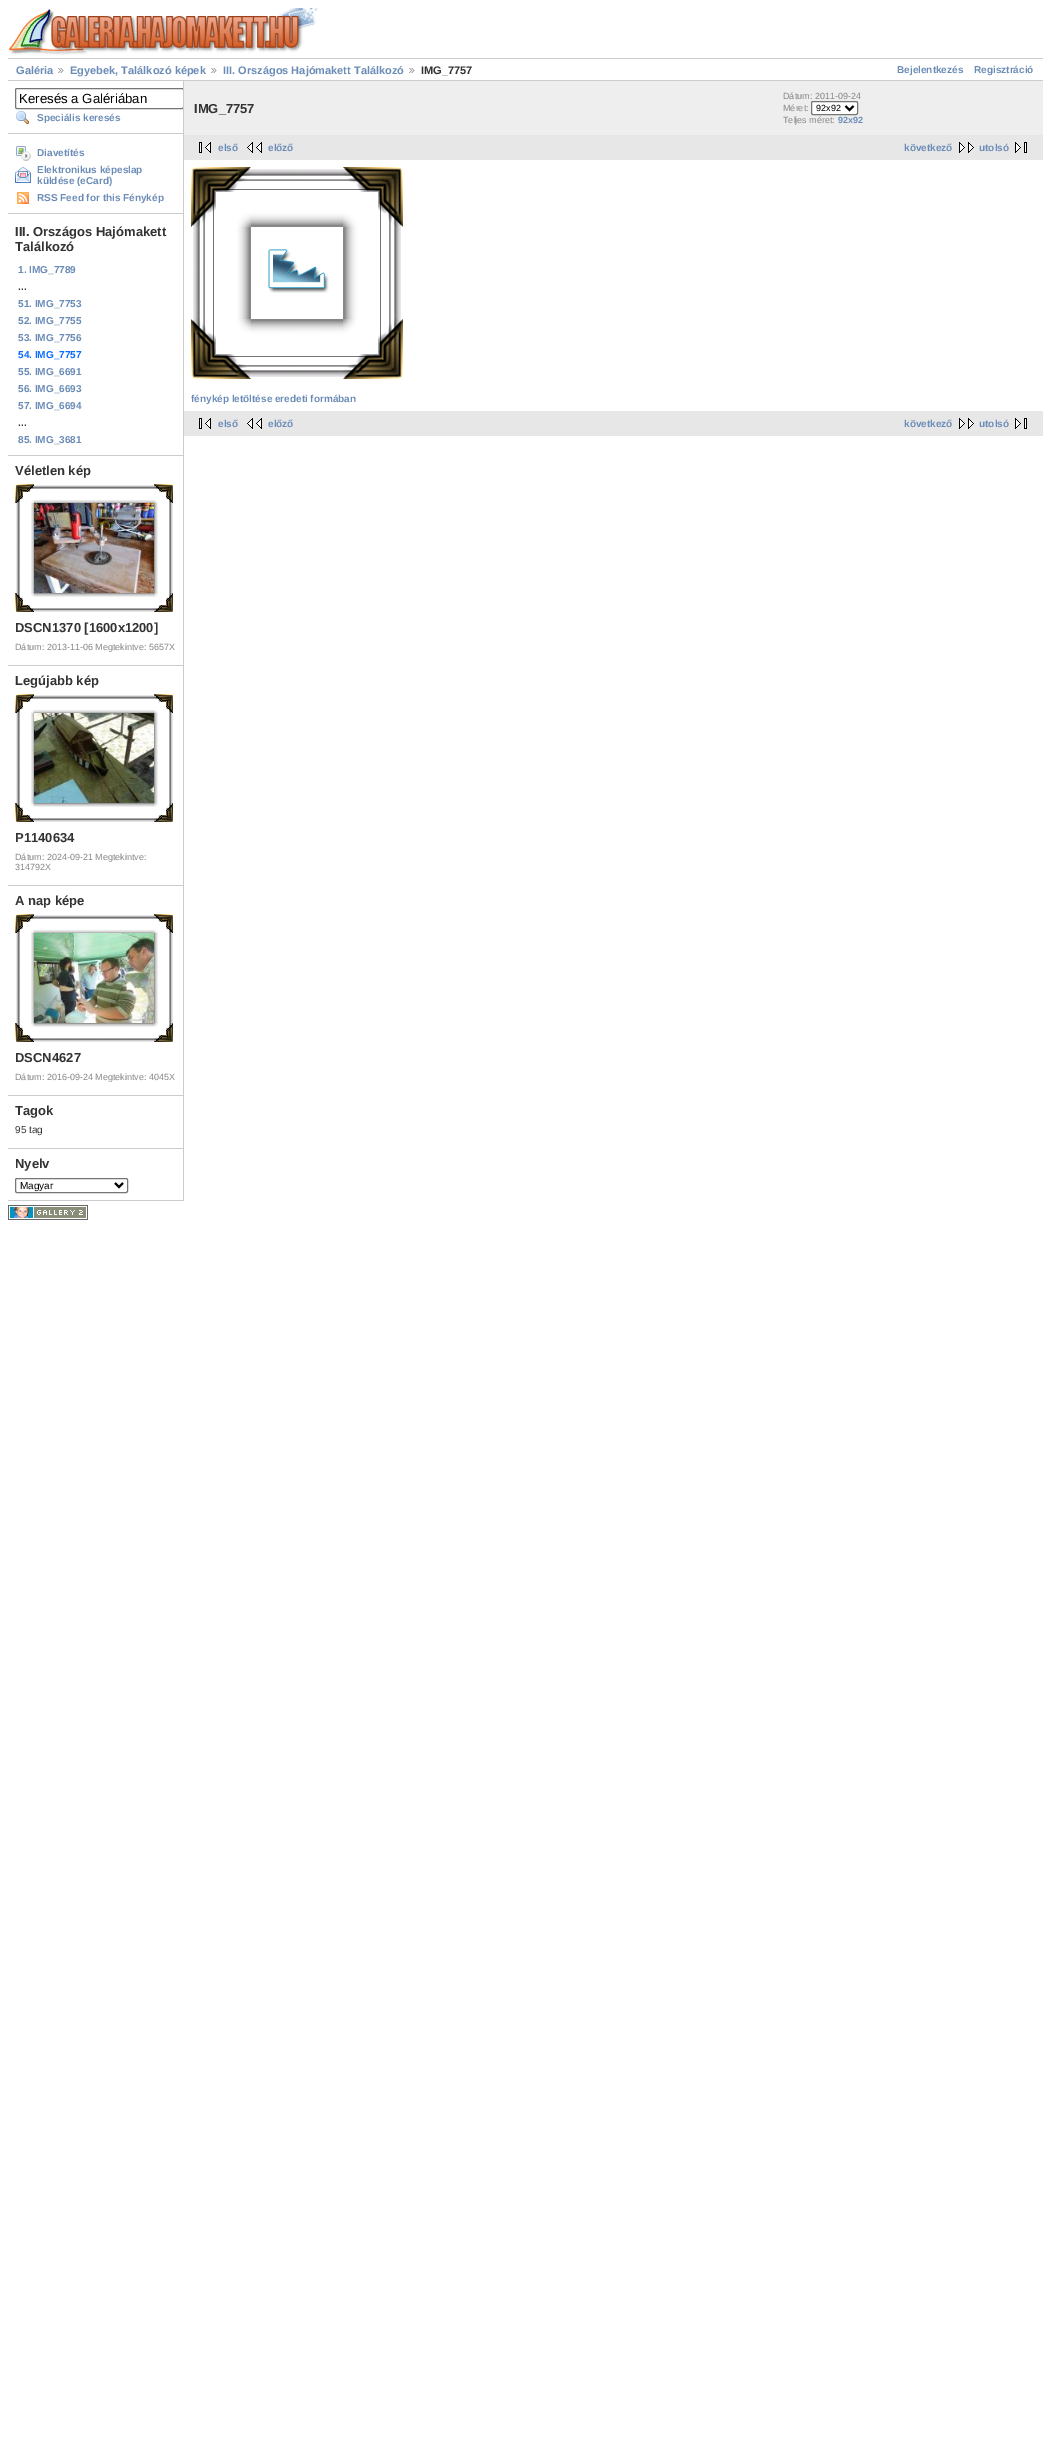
%!PS-Adobe-3.0
%%BoundingBox: 0 0 1051 2440
%%LanguageLevel: 3
%%Pages: 1
%%EndComments
%%BeginProlog
/setink { 3 { 255 div 3 1 roll } repeat setrgbcolor } def
/usefont { [ exch dup neg 0 0 3 -1 roll 0 0 ] selectfont } def
/drawtext { setink usefont moveto show } def
/fillbox { setink rectfill } def
/rrect { 5 dict begin { /r /h /w /y /x } { exch def } forall
  x r add y moveto x w add y 2 copy h add r arct x w add y h add x 1 index r arct
  x y h add x y r arct x y 2 copy exch w add exch r arct closepath end } def
/drawimage { 5 dict begin { /h /w /y /x /name } { exch def } forall
  gsave x y translate w h scale
  w h 8 [w 0 0 h 0 0] name (r) file false 3 colorimage grestore end } def
%%EndProlog
%%BeginSetup
<< /PageSize [1051 2440] >> setpagedevice
%%EndSetup
%%Page: 1 1
0 2440 translate 1 -1 scale
4 setmiterlimit
0 0 1051 2440 255 255 255 fillbox
(assets/img1.rgb) 9 8 309 48 drawimage
8 58 1035 1 204 204 204 fillbox
8 80 1035 1 204 204 204 fillbox
(Galéria) 16 74 /LiberationSans-Bold 11 107 140 183 drawtext
(assets/img2.rgb) 58 68 6 5 drawimage
(Egyebek, Találkozó képek) 70 74 /LiberationSans-Bold 11 107 140 183 drawtext
(assets/img2.rgb) 211 68 6 5 drawimage
(III. Országos Hajómakett Találkozó) 223 74 /LiberationSans-Bold 11 107 140 183 drawtext
(assets/img2.rgb) 409 68 6 5 drawimage
(IMG_7757) 421 74 /LiberationSans-Bold 11 51 51 51 drawtext
(Bejelentkezés) 897 73 /LiberationSans-Bold 10 107 140 183 drawtext
(Regisztráció) 974 73 /LiberationSans-Bold 10 107 140 183 drawtext
183 81 1 1120 204 204 204 fillbox
8 133 175 1 204 204 204 fillbox
gsave
8 81 175 1120 rectclip
118 118 118 setink
15.5 88.5 168 20 1.5 rrect stroke
grestore
(Keresés a Galériában) 19 103 /LiberationSans-Regular 13.25 0 0 0 drawtext
(assets/img3.rgb) 16 111 13 14 drawimage
(Speciális keresés) 37 121 /LiberationSans-Bold 10 107 140 183 drawtext
8 213 175 1 204 204 204 fillbox
(assets/img4.rgb) 16 146 15 15 drawimage
(Diavetítés) 37 156 /LiberationSans-Bold 10 107 140 183 drawtext
(assets/img5.rgb) 15 167 16 16 drawimage
(Elektronikus képeslap) 37 173 /LiberationSans-Bold 10 107 140 183 drawtext
(küldése \(eCard\)) 37 184 /LiberationSans-Bold 10 107 140 183 drawtext
(assets/img6.rgb) 17 192 12 12 drawimage
(RSS Feed for this Fénykép) 37 201 /LiberationSans-Bold 10 107 140 183 drawtext
8 455 175 1 204 204 204 fillbox
(III. Országos Hajómakett) 15 236 /LiberationSans-Bold 13 51 51 51 drawtext
(Találkozó) 15 251 /LiberationSans-Bold 13 51 51 51 drawtext
(1. IMG_7789) 18 273 /LiberationSans-Bold 10 107 140 183 drawtext
(...) 18 290 /LiberationSans-Bold 10 51 51 51 drawtext
(51. IMG_7753) 18 307 /LiberationSans-Bold 10 107 140 183 drawtext
(52. IMG_7755) 18 324 /LiberationSans-Bold 10 107 140 183 drawtext
(53. IMG_7756) 18 341 /LiberationSans-Bold 10 107 140 183 drawtext
(54. IMG_7757) 18 358 /LiberationSans-Bold 10 11 108 255 drawtext
(55. IMG_6691) 18 375 /LiberationSans-Bold 10 107 140 183 drawtext
(56. IMG_6693) 18 392 /LiberationSans-Bold 10 107 140 183 drawtext
(57. IMG_6694) 18 409 /LiberationSans-Bold 10 107 140 183 drawtext
(...) 18 426 /LiberationSans-Bold 10 51 51 51 drawtext
(85. IMG_3681) 18 443 /LiberationSans-Bold 10 107 140 183 drawtext
8 665 175 1 204 204 204 fillbox
(Véletlen kép) 15 475 /LiberationSans-Bold 13 51 51 51 drawtext
(assets/img7.rgb) 15 484 19 19 drawimage
(assets/img8.rgb) 34 485 120 18 drawimage
(assets/img9.rgb) 154 484 19 19 drawimage
(assets/img10.rgb) 16 503 18 90 drawimage
(assets/img11.rgb) 34 503 120 90 drawimage
(assets/img12.rgb) 154 503 19 90 drawimage
(assets/img13.rgb) 15 593 19 19 drawimage
(assets/img14.rgb) 34 593 120 19 drawimage
(assets/img15.rgb) 154 593 19 19 drawimage
(DSCN1370 [1600x1200]) 15 632 /LiberationSans-Bold 13 51 51 51 drawtext
(Dátum: 2013-11-06 Megtekintve: 5657X) 15 650 /LiberationSans-Regular 9 136 136 136 drawtext
8 885 175 1 204 204 204 fillbox
(Legújabb kép) 15 685 /LiberationSans-Bold 13 51 51 51 drawtext
(assets/img7.rgb) 15 694 19 19 drawimage
(assets/img8.rgb) 34 695 120 18 drawimage
(assets/img9.rgb) 154 694 19 19 drawimage
(assets/img10.rgb) 16 713 18 90 drawimage
(assets/img16.rgb) 34 713 120 90 drawimage
(assets/img12.rgb) 154 713 19 90 drawimage
(assets/img13.rgb) 15 803 19 19 drawimage
(assets/img14.rgb) 34 803 120 19 drawimage
(assets/img15.rgb) 154 803 19 19 drawimage
(P1140634) 15 842 /LiberationSans-Bold 13 51 51 51 drawtext
(Dátum: 2024-09-21 Megtekintve:) 15 860 /LiberationSans-Regular 9 136 136 136 drawtext
(314792X) 15 870 /LiberationSans-Regular 9 136 136 136 drawtext
8 1095 175 1 204 204 204 fillbox
(A nap képe) 15 905 /LiberationSans-Bold 13 51 51 51 drawtext
(assets/img7.rgb) 15 914 19 19 drawimage
(assets/img8.rgb) 34 915 120 18 drawimage
(assets/img9.rgb) 154 914 19 19 drawimage
(assets/img10.rgb) 16 933 18 90 drawimage
(assets/img17.rgb) 34 933 120 90 drawimage
(assets/img12.rgb) 154 933 19 90 drawimage
(assets/img13.rgb) 15 1023 19 19 drawimage
(assets/img14.rgb) 34 1023 120 19 drawimage
(assets/img15.rgb) 154 1023 19 19 drawimage
(DSCN4627) 15 1062 /LiberationSans-Bold 13 51 51 51 drawtext
(Dátum: 2016-09-24 Megtekintve: 4045X) 15 1080 /LiberationSans-Regular 9 136 136 136 drawtext
8 1148 175 1 204 204 204 fillbox
(Tagok) 15 1115 /LiberationSans-Bold 13 51 51 51 drawtext
(95 tag) 15 1133 /LiberationSans-Regular 10 51 51 51 drawtext
8 1200 175 1 204 204 204 fillbox
(Nyelv) 15 1168 /LiberationSans-Bold 13 51 51 51 drawtext
118 118 118 setink
15.5 1178.5 112 14 1.5 rrect stroke
0 0 0 setink
2 setlinewidth
115 1183 moveto 119 1187 lineto 123 1183 lineto stroke
(Magyar) 20 1189 /LiberationSans-Regular 10 0 0 0 drawtext
184 81 859 54 238 238 238 fillbox
(IMG_7757) 194 113 /LiberationSans-Bold 13 51 51 51 drawtext
(Dátum: 2011-09-24) 783 99 /LiberationSans-Regular 9 136 136 136 drawtext
(Méret:) 783 111 /LiberationSans-Regular 9 136 136 136 drawtext
255 255 255 setink
811.5 101.5 46 13 1.5 rrect gsave fill grestore
118 118 118 setink
1 setlinewidth
stroke
0 0 0 setink
2 setlinewidth
845.5 106 moveto 849.5 110 lineto 853.5 106 lineto stroke
(92x92) 816 111 /LiberationSans-Regular 9 0 0 0 drawtext
(Teljes méret:) 783 123 /LiberationSans-Regular 9 136 136 136 drawtext
(92x92) 838 123 /LiberationSans-Bold 9 107 140 183 drawtext
184 135 859 25 231 231 231 fillbox
(assets/img18.rgb) 199 142 12 11 drawimage
(első) 218 151 /LiberationSans-Bold 10 107 140 183 drawtext
(assets/img19.rgb) 247 142 15 11 drawimage
(előző) 268 151 /LiberationSans-Bold 10 107 140 183 drawtext
(következő) 904 151 /LiberationSans-Bold 10 107 140 183 drawtext
(assets/img20.rgb) 959 142 15 11 drawimage
(utolsó) 979 151 /LiberationSans-Bold 10 107 140 183 drawtext
(assets/img21.rgb) 1015 142 12 11 drawimage
(assets/img22.rgb) 191 167 60 60 drawimage
(assets/img23.rgb) 251 169 92 58 drawimage
(assets/img24.rgb) 343 167 60 60 drawimage
(assets/img25.rgb) 193 227 58 92 drawimage
(assets/img26.rgb) 268 249 61 44 drawimage
(assets/img27.rgb) 343 227 58 92 drawimage
(assets/img28.rgb) 191 319 60 60 drawimage
(assets/img29.rgb) 251 319 92 58 drawimage
(assets/img30.rgb) 343 319 60 60 drawimage
(fénykép letöltése eredeti formában) 191 402 /LiberationSans-Bold 10 107 140 183 drawtext
184 411 859 25 231 231 231 fillbox
(assets/img18.rgb) 199 418 12 11 drawimage
(első) 218 427 /LiberationSans-Bold 10 107 140 183 drawtext
(assets/img19.rgb) 247 418 15 11 drawimage
(előző) 268 427 /LiberationSans-Bold 10 107 140 183 drawtext
(következő) 904 427 /LiberationSans-Bold 10 107 140 183 drawtext
(assets/img20.rgb) 959 418 15 11 drawimage
(utolsó) 979 427 /LiberationSans-Bold 10 107 140 183 drawtext
(assets/img21.rgb) 1015 418 12 11 drawimage
(assets/img31.rgb) 8 1205 80 15 drawimage
showpage
%%EOF
